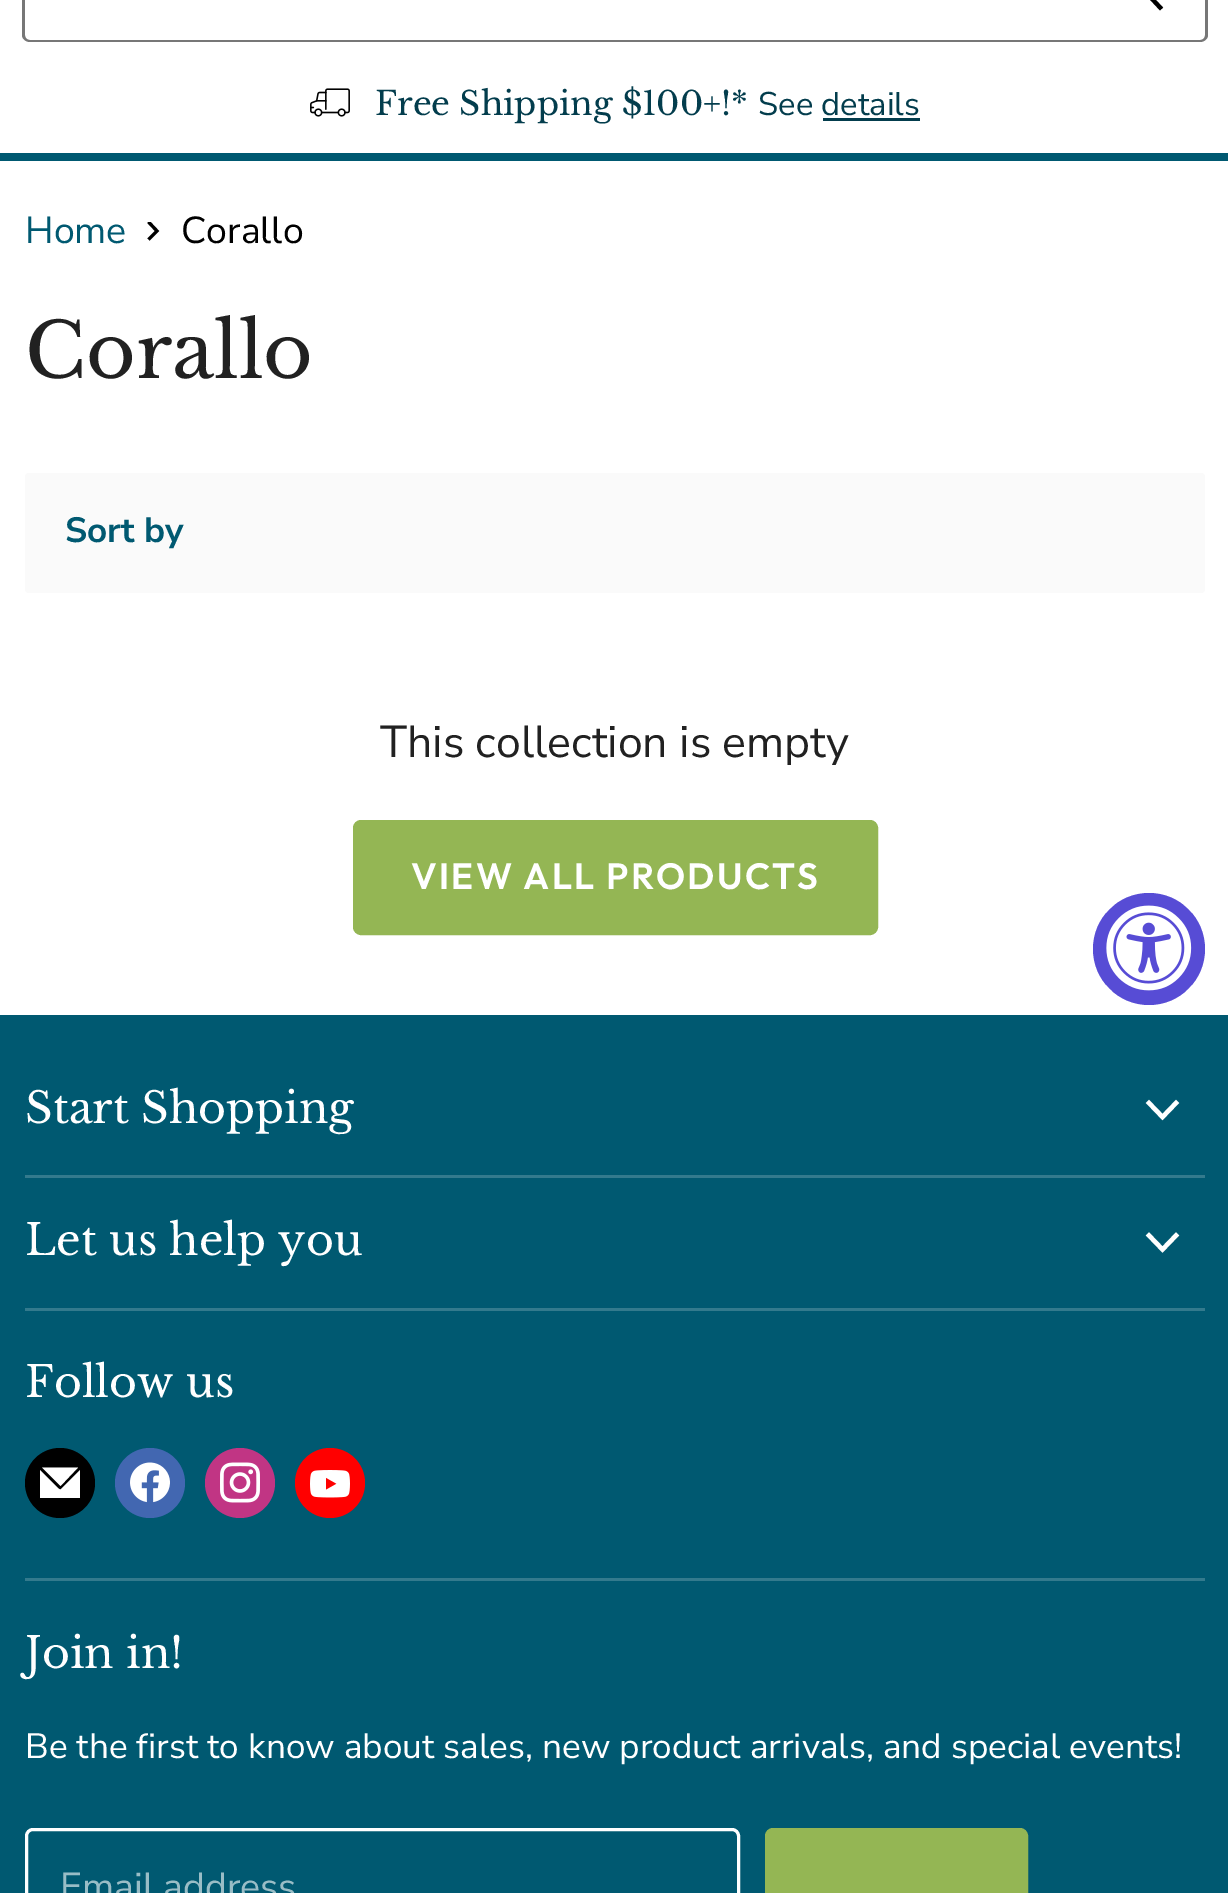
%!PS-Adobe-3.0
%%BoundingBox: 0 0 1228 1893
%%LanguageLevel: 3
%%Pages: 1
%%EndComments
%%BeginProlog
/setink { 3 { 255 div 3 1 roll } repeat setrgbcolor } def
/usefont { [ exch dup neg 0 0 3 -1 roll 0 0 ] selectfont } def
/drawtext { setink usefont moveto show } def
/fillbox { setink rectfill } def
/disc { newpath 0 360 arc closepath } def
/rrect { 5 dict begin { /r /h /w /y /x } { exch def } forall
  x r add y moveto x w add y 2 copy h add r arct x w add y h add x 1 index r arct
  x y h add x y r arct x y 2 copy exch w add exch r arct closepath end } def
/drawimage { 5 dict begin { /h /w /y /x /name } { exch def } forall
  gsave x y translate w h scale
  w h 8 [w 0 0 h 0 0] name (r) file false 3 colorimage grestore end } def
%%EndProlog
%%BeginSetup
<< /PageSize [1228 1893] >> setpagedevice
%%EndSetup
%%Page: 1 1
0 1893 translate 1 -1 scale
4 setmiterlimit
0 0 1228 1893 255 255 255 fillbox
0 153 1228 8 0 89 113 fillbox
119 119 119 setink
30 -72 moveto 1075 -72 lineto 1075 42 lineto 30 42 lineto 26 42 22 39 22 35 curveto 22 -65 lineto 22 -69 26 -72 30 -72 curveto closepath 30 -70 moveto 1075 -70 lineto 1075 40 lineto 30 40 lineto 27 40 25 38 25 35 curveto 25 -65 lineto 25 -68 27 -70 30 -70 curveto closepath eofill
1075 -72 moveto 1200 -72 lineto 1204 -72 1208 -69 1208 -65 curveto 1208 35 lineto 1208 39 1204 42 1200 42 curveto 1075 42 lineto closepath 1075 -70 moveto 1200 -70 lineto 1203 -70 1205 -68 1205 -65 curveto 1205 35 lineto 1205 38 1203 40 1200 40 curveto 1075 40 lineto closepath eofill
0 0 0 setink
4.2 setlinewidth
1161.5 9 moveto 1147.5 -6 lineto stroke
(assets/img1.rgb) 310 88 40 29 drawimage
(Free Shipping $100+!*) 375 115 /LibreBaskerville-Regular 32.75 3 61 77 drawtext
(See details) 758 115 /NunitoSans-Regular 32.75 3 61 77 drawtext
823 118 97 3 3 61 77 fillbox
(Home) 25 243 /NunitoSans-Regular 37.5 0 89 113 drawtext
gsave
147.5 242 moveto 147.5 222 lineto 160 222 lineto 160 242 lineto closepath clip newpath
0 0 0 setink
3.1 setlinewidth
148.5 239.5 moveto 157 231 lineto 148.5 222 lineto stroke
grestore
(Corallo) 181 243 /NunitoSans-Regular 37.5 0 0 0 drawtext
(Corallo) 25 378 /LibreBaskerville-Regular 76 33 33 33 drawtext
250 250 250 setink
25 473 1180 120 4 rrect fill
(Sort by) 65 542 /NunitoSans-Bold 35.15 0 89 113 drawtext
(This collection is empty) 380 757 /NunitoSans-Regular 44.6 33 33 33 drawtext
148 182 84 setink
354.5 821.5 522 112 6.5 rrect gsave fill grestore
3 setlinewidth
stroke
/Outfit-SemiBold 36.5 usefont
255 255 255 setink
411 889 moveto 2.2 0 (VIEW ALL PRODUCTS) ashow
87 76 213 setink
1149 949 56 disc fill
(assets/img2.rgb) 1106 905 86 86 drawimage
0 1015 1228 878 0 89 113 fillbox
25 1175 1180 3 51 122 141 fillbox
(Start Shopping) 25 1123 /LibreBaskerville-Regular 42.75 255 255 255 drawtext
4.4 setlinewidth
2 setlinecap
1162.5 1117 moveto 1176 1103 lineto 1162.5 1117 moveto 1149 1103 lineto stroke
25 1308 1180 3 51 122 141 fillbox
(Let us help you) 25 1255 /LibreBaskerville-Regular 42.75 255 255 255 drawtext
1162.5 1249.5 moveto 1176 1235.5 lineto 1162.5 1249.5 moveto 1149 1235.5 lineto stroke
25 1578 1180 3 51 122 141 fillbox
(Follow us) 25 1397 /LibreBaskerville-Regular 42.75 255 255 255 drawtext
0 0 0 setink
60 1483 35 disc fill
255 255 255 setink
61 1489 moveto 60 1491 56 1486 56 1486 curveto 40 1470 lineto 40 1498 lineto 80 1498 lineto 80 1470 lineto closepath fill
78 1467.5 moveto 42 1467.5 lineto 60.5 1486 lineto closepath fill
66 103 177 setink
150 1483 35 disc fill
(assets/img3.rgb) 130 1462 40 41 drawimage
193 53 132 setink
240 1483 35 disc fill
(assets/img4.rgb) 220 1462 40 41 drawimage
255 0 0 setink
330 1483 35 disc fill
(assets/img5.rgb) 310 1470 40 28 drawimage
(Join in!) 25 1668 /LibreBaskerville-Regular 42.75 255 255 255 drawtext
(Be the first to know about sales, new product arrivals, and special events!) 25 1758 /NunitoSans-Regular 35.15 255 255 255 drawtext
3 setlinewidth
0 setlinecap
26.5 1829.5 712 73 6.5 rrect stroke
(Email address) 60 1899 /NunitoSans-Regular 37.5 153 189 198 drawtext
148 182 84 setink
766.5 1829.5 260 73 6.5 rrect gsave fill grestore
stroke
showpage
%%EOF
